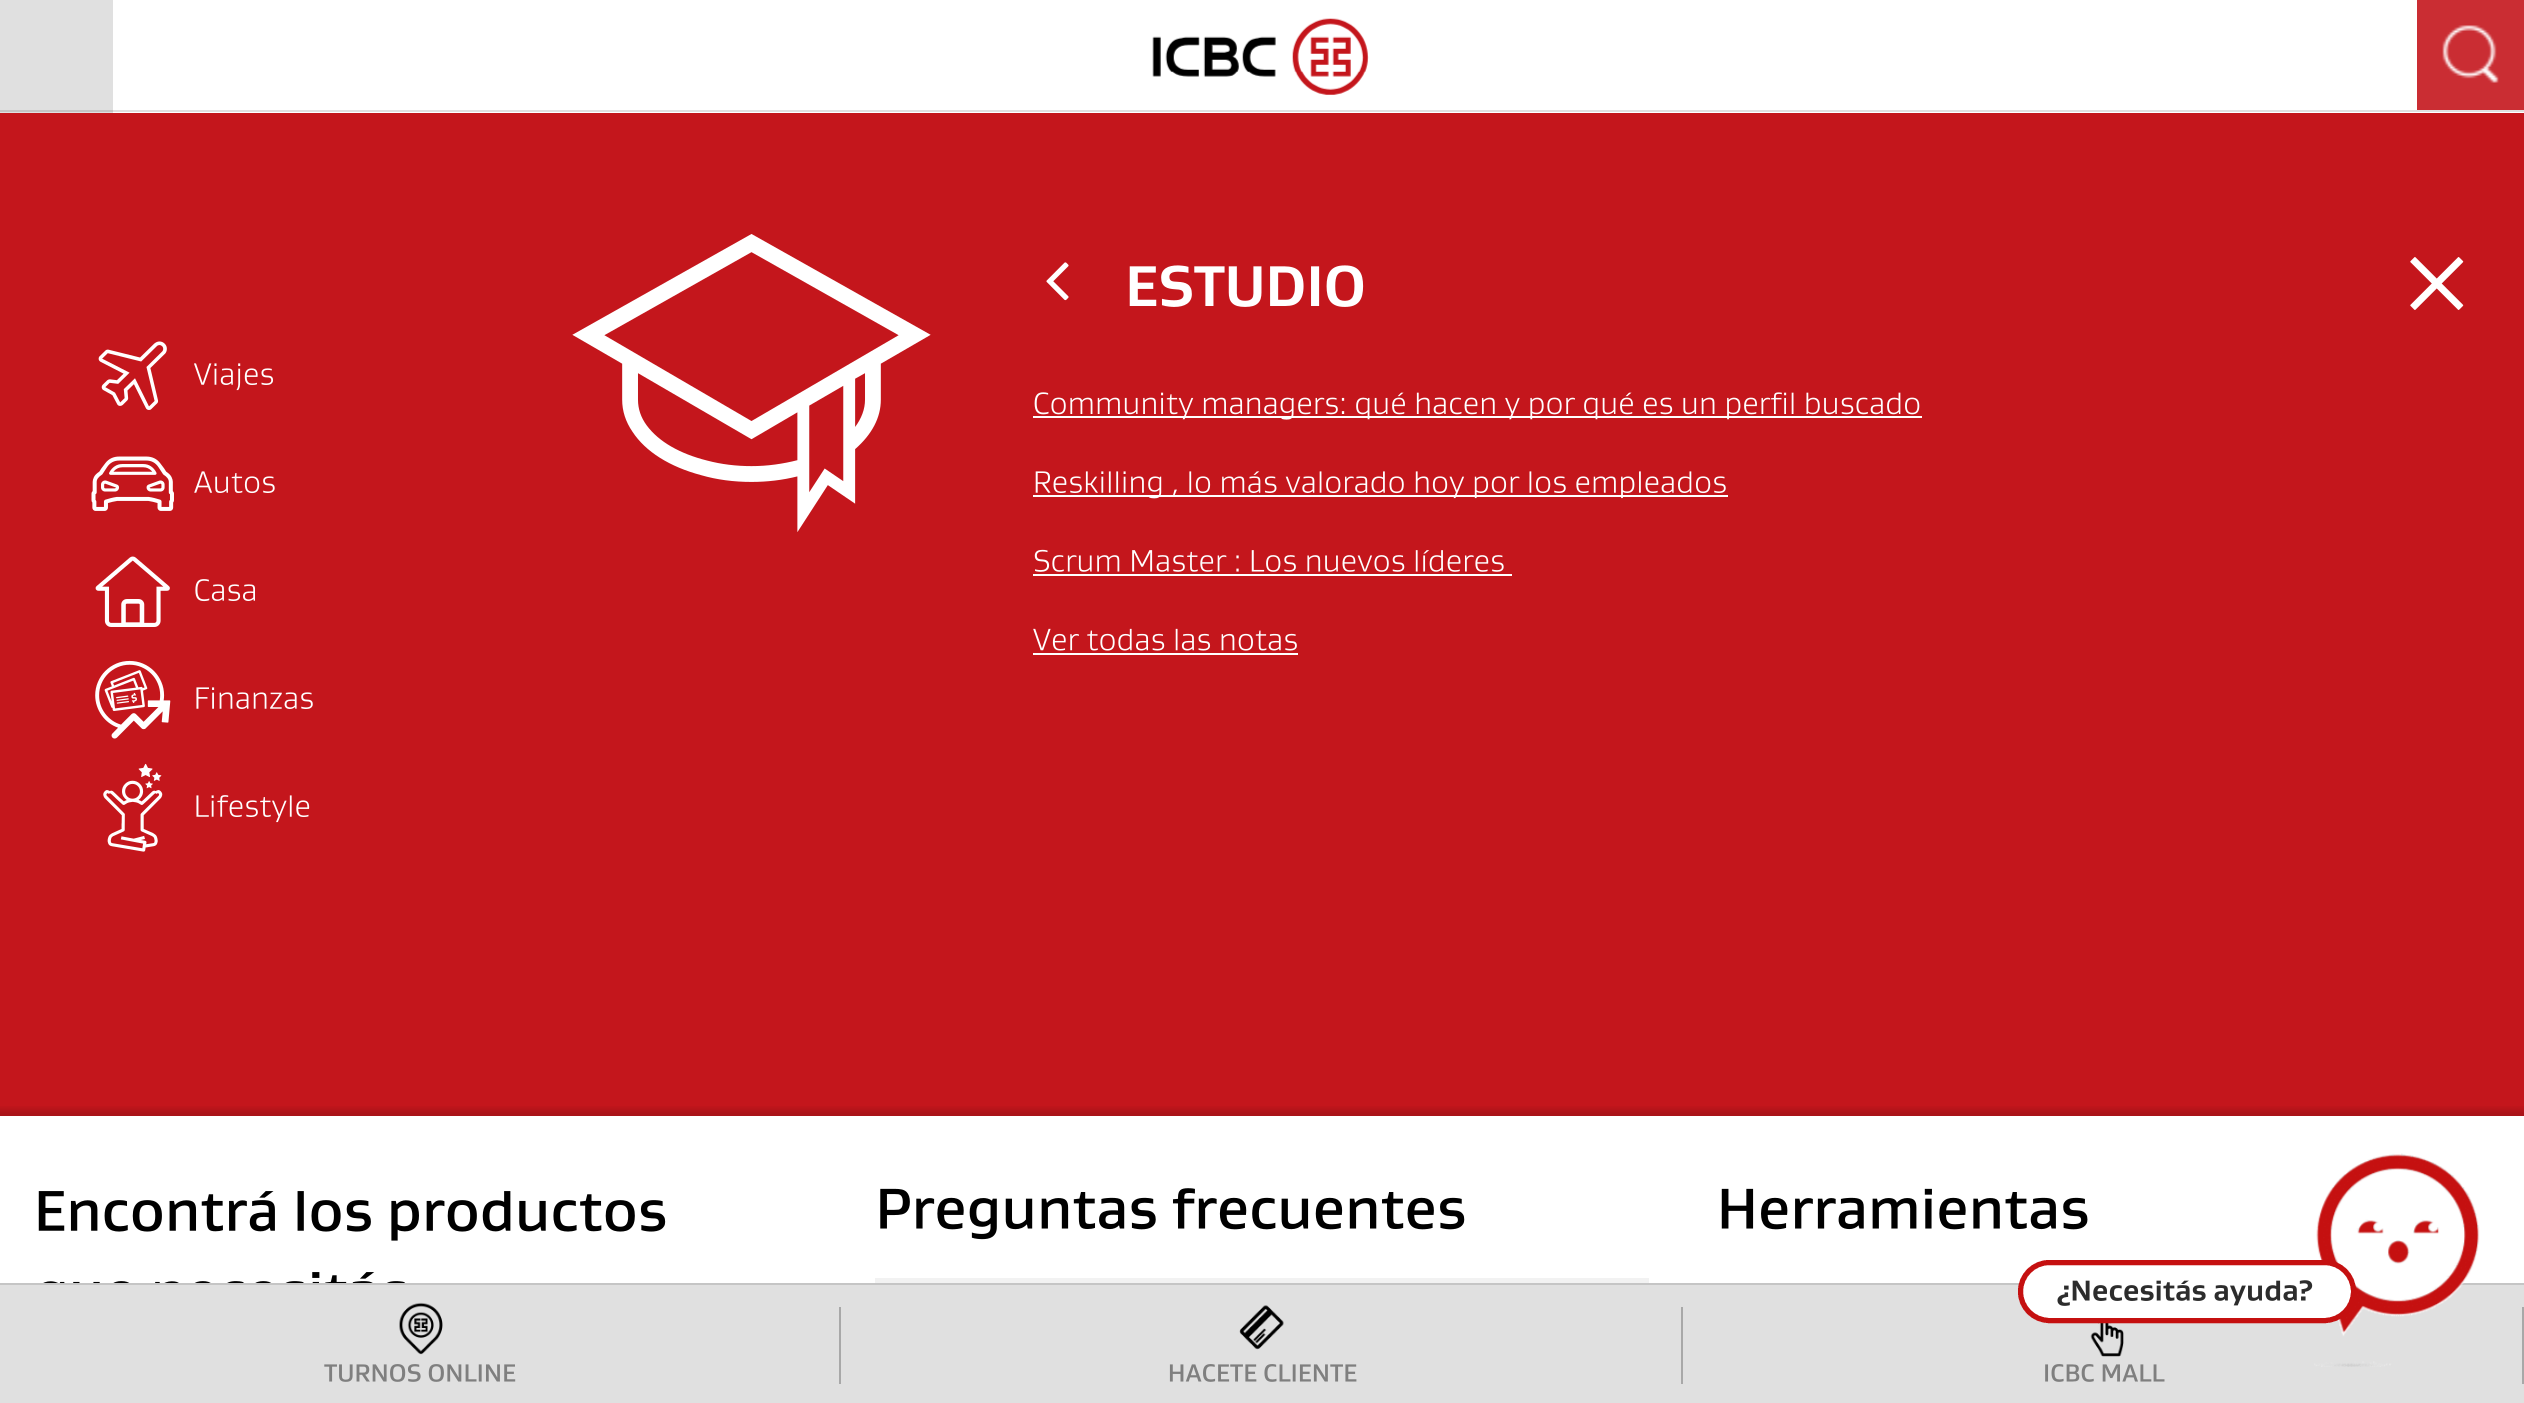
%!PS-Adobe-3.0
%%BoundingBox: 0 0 2524 1403
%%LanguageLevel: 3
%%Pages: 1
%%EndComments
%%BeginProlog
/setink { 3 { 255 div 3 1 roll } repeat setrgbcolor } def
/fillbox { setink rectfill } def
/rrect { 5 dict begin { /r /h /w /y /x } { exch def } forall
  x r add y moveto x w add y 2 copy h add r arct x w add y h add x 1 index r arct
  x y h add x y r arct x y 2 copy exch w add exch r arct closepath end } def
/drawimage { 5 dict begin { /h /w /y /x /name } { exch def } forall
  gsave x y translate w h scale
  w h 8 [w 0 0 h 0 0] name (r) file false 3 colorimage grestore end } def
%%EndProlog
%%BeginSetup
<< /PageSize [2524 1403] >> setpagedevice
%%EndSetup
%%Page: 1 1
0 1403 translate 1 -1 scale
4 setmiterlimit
0 0 2524 1403 255 255 255 fillbox
0 0 113 113 224 224 224 fillbox
2417 0 107 110 202 45 51 fillbox
(assets/img1.rgb) 2442 25 57 58 drawimage
113 110 2411 2 224 224 224 fillbox
0 110 113 2 197 197 197 fillbox
(assets/img2.rgb) 1152 18 217 77 drawimage
0 1285 2524 118 224 224 224 fillbox
0 1283 2524 2 197 197 197 fillbox
(assets/img3.rgb) 399 1302 44 53 drawimage
(assets/img4.rgb) 324 1364 192 18 drawimage
839 1307 2 77 168 168 168 fillbox
(assets/img5.rgb) 1239 1305 45 45 drawimage
(assets/img6.rgb) 1169 1364 188 18 drawimage
1681 1307 2 77 168 168 168 fillbox
(assets/img7.rgb) 2090 1323 34 34 drawimage
(assets/img8.rgb) 2045 1364 120 18 drawimage
2522 1307 2 77 168 168 168 fillbox
0 113 2524 1003 196 22 28 fillbox
(assets/img9.rgb) 572 234 359 298 drawimage
(assets/img10.rgb) 1046 262 23 39 drawimage
(assets/img11.rgb) 1129 265 235 42 drawimage
1033 416 889 2 255 255 255 fillbox
(assets/img12.rgb) 1034 392 886 28 drawimage
1033 495 695 2 255 255 255 fillbox
(assets/img13.rgb) 1035 471 691 28 drawimage
(assets/img14.rgb) 1034 549 470 23 drawimage
1033 574 479 2 255 255 255 fillbox
(assets/img15.rgb) 1033 628 264 23 drawimage
1033 653 265 2 255 255 255 fillbox
(assets/img16.rgb) 2410 257 54 53 drawimage
(assets/img17.rgb) 98 341 69 69 drawimage
(assets/img18.rgb) 194 363 79 28 drawimage
(assets/img19.rgb) 91 456 83 55 drawimage
(assets/img20.rgb) 194 471 81 23 drawimage
(assets/img21.rgb) 95 556 75 71 drawimage
(assets/img22.rgb) 195 579 60 23 drawimage
(assets/img23.rgb) 95 660 76 79 drawimage
(assets/img24.rgb) 196 687 117 22 drawimage
(assets/img25.rgb) 103 763 60 89 drawimage
(assets/img26.rgb) 196 795 114 28 drawimage
(assets/img27.rgb) 0 1106 2524 10 drawimage
(assets/img28.rgb) 38 1191 628 50 drawimage
(assets/img29.rgb) 43 1272 362 11 drawimage
(assets/img30.rgb) 880 1188 585 52 drawimage
875 1278 774 5 242 242 242 fillbox
(assets/img31.rgb) 1721 1188 367 42 drawimage
(assets/img33.rgb) 2314 1153 166 214 drawimage
255 255 255 setink
2020.5 1262.5 333 58 29 rrect gsave fill grestore
197 16 16 setink
5 setlinewidth
stroke
(assets/img32.rgb) 2057 1280 256 26 drawimage
showpage
%%EOF
